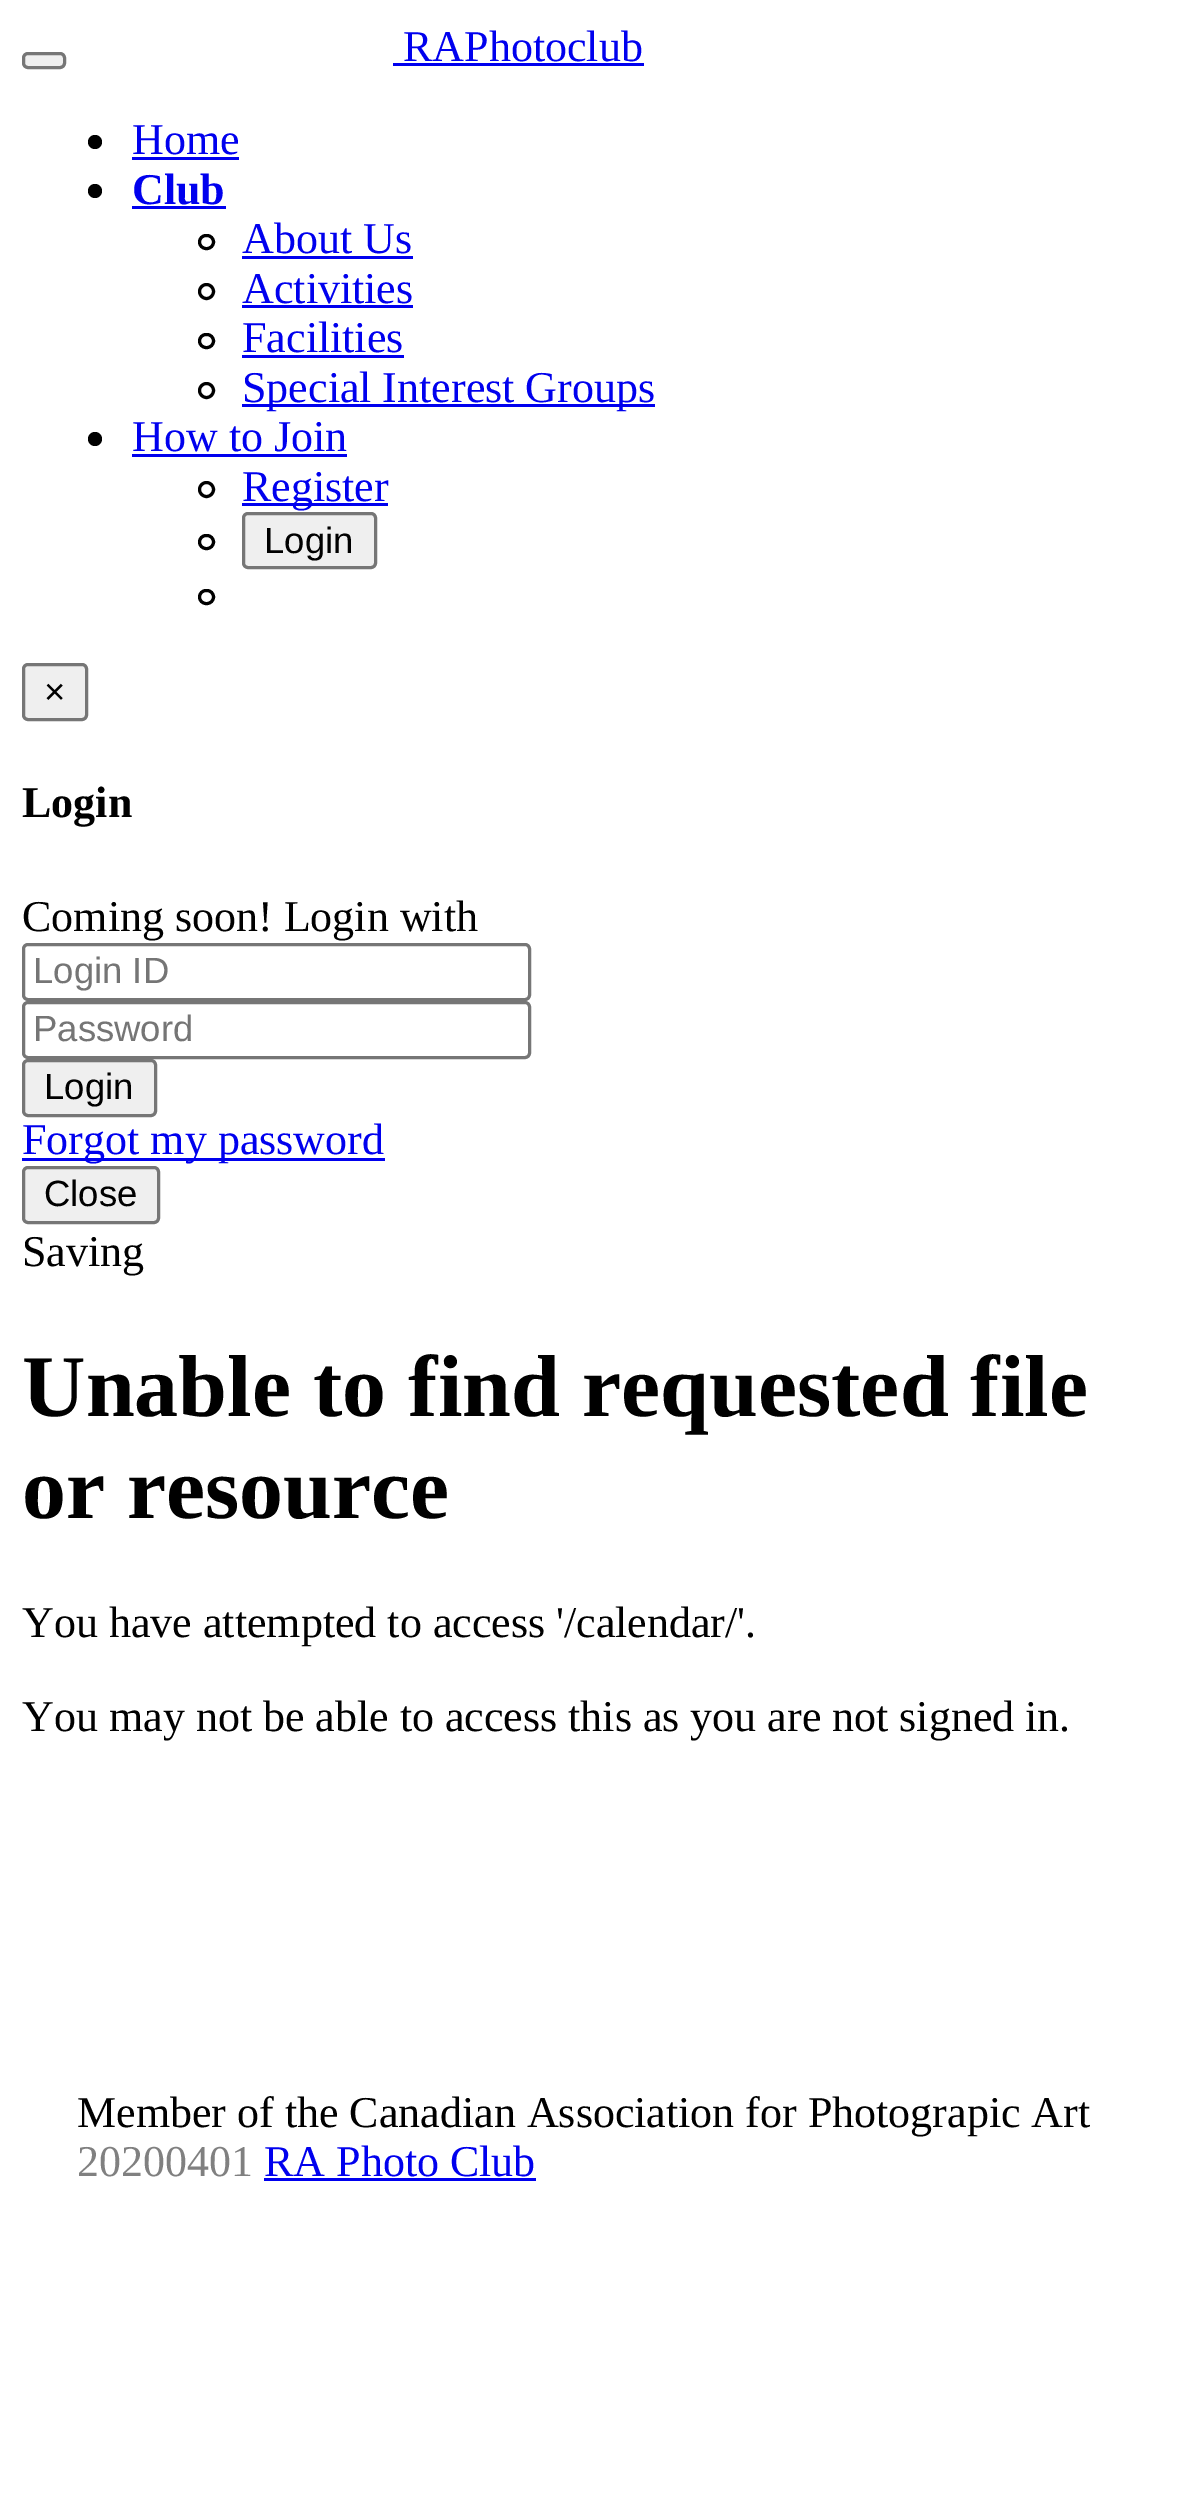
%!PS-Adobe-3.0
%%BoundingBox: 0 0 1179 2520
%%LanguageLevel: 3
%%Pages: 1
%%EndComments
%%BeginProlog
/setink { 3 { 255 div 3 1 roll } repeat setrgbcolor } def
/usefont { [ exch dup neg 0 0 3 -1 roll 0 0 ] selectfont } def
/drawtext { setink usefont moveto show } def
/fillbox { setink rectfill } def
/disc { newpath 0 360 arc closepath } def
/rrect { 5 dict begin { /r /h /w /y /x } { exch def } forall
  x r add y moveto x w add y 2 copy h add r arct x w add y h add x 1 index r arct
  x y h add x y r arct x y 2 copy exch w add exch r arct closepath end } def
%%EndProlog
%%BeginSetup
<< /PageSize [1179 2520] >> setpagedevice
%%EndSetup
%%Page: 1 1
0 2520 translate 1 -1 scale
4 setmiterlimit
0 0 1179 2520 255 255 255 fillbox
239 239 239 setink
23.5 53.5 41 14 4.5 rrect gsave fill grestore
118 118 118 setink
3 setlinewidth
stroke
(RAPhotoclub) 403 61 /LiberationSerif-Regular 44 0 0 238 drawtext
393 63 251 3 0 0 238 fillbox
0 0 0 setink
95 142 7 disc fill
(Home) 132 154 /LiberationSerif-Regular 44 0 0 238 drawtext
132 157 107 3 0 0 238 fillbox
0 0 0 setink
95 191 7 disc fill
(Club) 132 204 /LiberationSerif-Bold 44 0 0 238 drawtext
132 206 94 3 0 0 238 fillbox
0 0 0 setink
199.5 235.5 14 13 6.5 rrect stroke
(About Us) 242 253 /LiberationSerif-Regular 44 0 0 238 drawtext
242 256 171 3 0 0 238 fillbox
0 0 0 setink
206.5 291.5 7 disc stroke
(Activities) 242 303 /LiberationSerif-Regular 44 0 0 238 drawtext
242 305 171 3 0 0 238 fillbox
0 0 0 setink
199.5 334.5 14 13 6.5 rrect stroke
(Facilities) 242 352 /LiberationSerif-Regular 44 0 0 238 drawtext
242 355 162 3 0 0 238 fillbox
0 0 0 setink
206.5 390.5 7 disc stroke
242 404 413 3 0 0 238 fillbox
(Special Interest Groups) 242 402 /LiberationSerif-Regular 44 0 0 238 drawtext
0 0 0 setink
95 439 7 disc fill
(How to Join) 132 451 /LiberationSerif-Regular 44 0 0 238 drawtext
132 454 215 3 0 0 238 fillbox
0 0 0 setink
206.5 489.5 7 disc stroke
242 503 146 3 0 0 238 fillbox
(Register) 242 501 /LiberationSerif-Regular 44 0 0 238 drawtext
0 0 0 setink
199.5 535.5 14 13 6.5 rrect stroke
239 239 239 setink
243.5 513.5 132 54 4.5 rrect gsave fill grestore
118 118 118 setink
stroke
(Login) 264 553 /LiberationSans-Regular 36.5 0 0 0 drawtext
199.5 590.5 14 13 6.5 rrect stroke
239 239 239 setink
23.5 664.5 63 55 4.5 rrect gsave fill grestore
118 118 118 setink
stroke
(×) 44 704 /LiberationSans-Regular 36.5 0 0 0 drawtext
(Login) 22 817 /LiberationSerif-Bold 44 0 0 0 drawtext
(Coming soon! Login with) 22 931 /LiberationSerif-Regular 44 0 0 0 drawtext
118 118 118 setink
23.5 944.5 506 55 4.5 rrect stroke
(Login ID) 33 983 /LiberationSans-Regular 36.5 117 117 117 drawtext
118 118 118 setink
23.5 1002.5 506 55 4.5 rrect stroke
(Password) 33 1041 /LiberationSans-Regular 36.5 117 117 117 drawtext
239 239 239 setink
23.5 1060.5 132 55 4.5 rrect gsave fill grestore
118 118 118 setink
stroke
(Login) 44 1099 /LiberationSans-Regular 36.5 0 0 0 drawtext
22 1158 363 3 0 0 238 fillbox
(Forgot my password) 22 1154 /LiberationSerif-Regular 44 0 0 238 drawtext
239 239 239 setink
23.5 1167.5 135 55 4.5 rrect gsave fill grestore
118 118 118 setink
stroke
(Close) 44 1206 /LiberationSans-Regular 36.5 0 0 0 drawtext
(Saving) 22 1266 /LiberationSerif-Regular 44 0 0 0 drawtext
(Unable to find requested file) 22 1416 /LiberationSerif-Bold 88 0 0 0 drawtext
(or resource) 22 1518 /LiberationSerif-Bold 88 0 0 0 drawtext
(You have attempted to access '/calendar/'.) 22 1637 /LiberationSerif-Regular 44 0 0 0 drawtext
(You may not be able to access this as you are not signed in.) 22 1731 /LiberationSerif-Regular 44 0 0 0 drawtext
(Member of the Canadian Association for Photograpic Art) 77 2127 /LiberationSerif-Regular 44 0 0 0 drawtext
(20200401) 77 2176 /LiberationSerif-Regular 44 128 128 128 drawtext
(RA Photo Club) 264 2176 /LiberationSerif-Regular 44 0 0 238 drawtext
264 2178 272 3 0 0 238 fillbox
showpage
%%EOF
